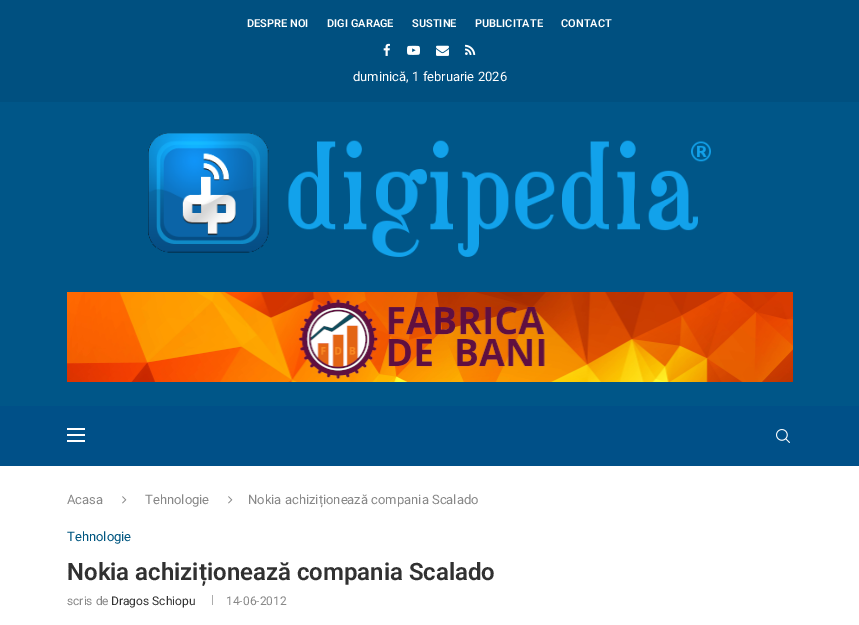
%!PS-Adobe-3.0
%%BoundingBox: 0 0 859 625
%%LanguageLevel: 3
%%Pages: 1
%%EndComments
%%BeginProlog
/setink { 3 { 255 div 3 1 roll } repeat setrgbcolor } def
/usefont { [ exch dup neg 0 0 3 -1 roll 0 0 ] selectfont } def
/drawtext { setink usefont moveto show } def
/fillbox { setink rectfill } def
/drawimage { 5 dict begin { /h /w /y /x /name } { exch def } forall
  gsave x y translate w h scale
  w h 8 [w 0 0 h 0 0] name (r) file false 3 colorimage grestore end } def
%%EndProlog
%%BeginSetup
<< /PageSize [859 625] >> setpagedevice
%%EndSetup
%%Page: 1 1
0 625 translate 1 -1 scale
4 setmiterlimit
0 0 859 625 255 255 255 fillbox
0 0 859 102 0 80 128 fillbox
(DESPRE NOI) 247 27 /Roboto-SemiBold 11 255 255 255 drawtext
(DIGI GARAGE) 327 27 /Roboto-SemiBold 11 255 255 255 drawtext
(SUSTINE) 412 27 /Roboto-SemiBold 11 255 255 255 drawtext
(PUBLICITATE) 475 27 /Roboto-SemiBold 11 255 255 255 drawtext
(CONTACT) 561 27 /Roboto-SemiBold 11 255 255 255 drawtext
(assets/img1.rgb) 383 43 7 13 drawimage
(assets/img2.rgb) 407 45 13 10 drawimage
(assets/img3.rgb) 436 45 13 11 drawimage
(assets/img4.rgb) 465 44 11 11 drawimage
(duminică, 1 februarie 2026) 353 81 /Roboto-Regular 13 255 255 255 drawtext
0 102 859 304 0 86 136 fillbox
(assets/img5.rgb) 148 133 563 124 drawimage
(assets/img6.rgb) 67 292 726 90 drawimage
0 406 859 60 0 80 136 fillbox
67 428 18 2 255 255 255 fillbox
67 434 18 2 255 255 255 fillbox
67 440 18 2 255 255 255 fillbox
(assets/img7.rgb) 776 429 14 14 drawimage
(Acasa) 67 504 /Roboto-Regular 13 136 136 136 drawtext
(assets/img8.rgb) 122 496 5 8 drawimage
(Tehnologie) 145 504 /Roboto-Regular 13 136 136 136 drawtext
(assets/img8.rgb) 228 496 5 8 drawimage
(Nokia achiziționează compania Scalado) 248 504 /Roboto-Regular 13 136 136 136 drawtext
(Tehnologie) 67 541 /Roboto-Regular 13 0 86 128 drawtext
(Nokia achiziționează compania Scalado) 67 580 /Roboto-SemiBold 24 49 49 49 drawtext
(scris de) 67 605 /Roboto-Regular 12 136 136 136 drawtext
(Dragos Schiopu) 111 605 /Roboto-Regular 12 49 49 49 drawtext
212 595 1 10 172 172 172 fillbox
(14-06-2012) 226 605 /Roboto-Regular 12 136 136 136 drawtext
showpage
%%EOF
